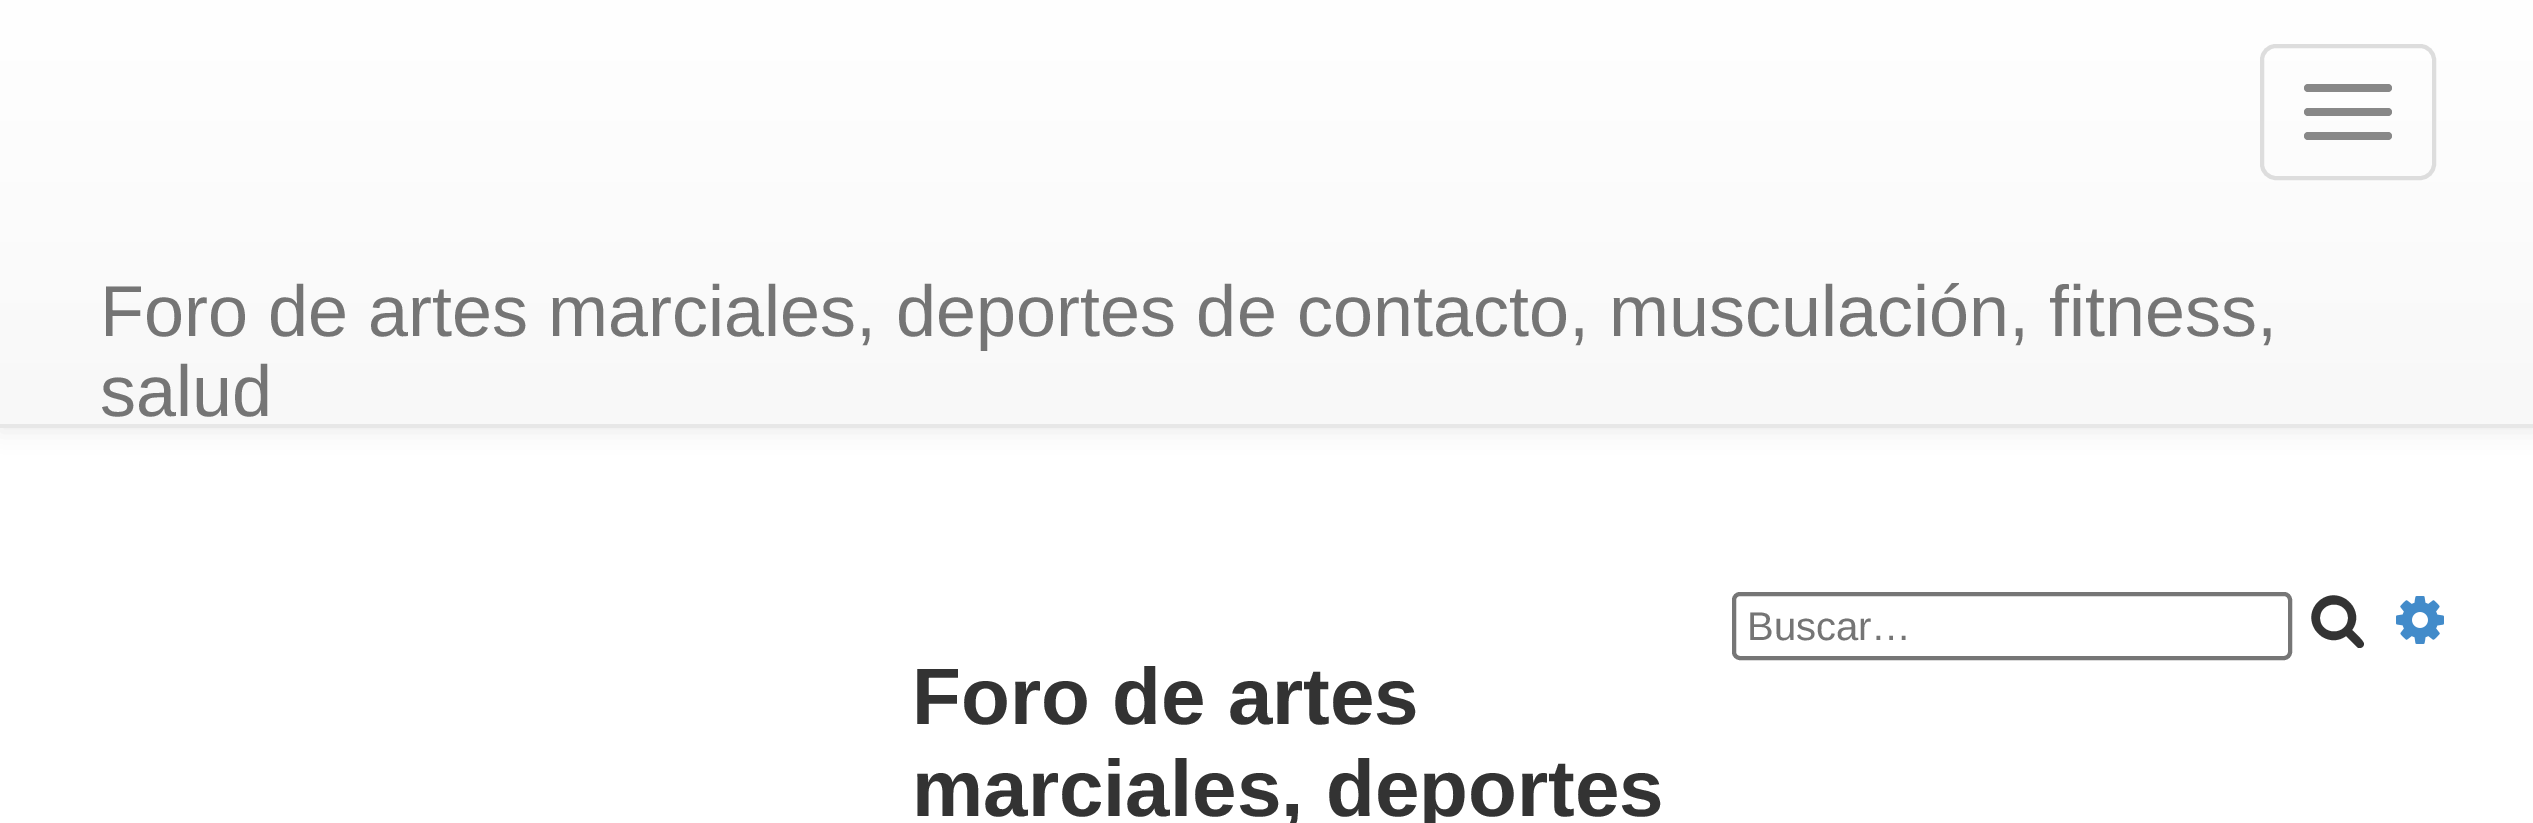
%!PS-Adobe-3.0
%%BoundingBox: 0 0 2533 823
%%LanguageLevel: 3
%%Pages: 1
%%EndComments
%%BeginProlog
/setink { 3 { 255 div 3 1 roll } repeat setrgbcolor } def
/usefont { [ exch dup neg 0 0 3 -1 roll 0 0 ] selectfont } def
/drawtext { setink usefont moveto show } def
/fillbox { setink rectfill } def
/setalpha { dup .setfillconstantalpha .setstrokeconstantalpha } def
/rrect { 5 dict begin { /r /h /w /y /x } { exch def } forall
  x r add y moveto x w add y 2 copy h add r arct x w add y h add x 1 index r arct
  x y h add x y r arct x y 2 copy exch w add exch r arct closepath end } def
/softshadow { 12 dict begin { /a /b /q /h /w /y /x } { exch def } forall gsave /was 0 def
  9 -2 -9 { dup b mul 4 div /e exch def 1 sub .425 mul 2.718 exch exp 1 add a .99 .min exch div /now exch def
    1 1 now sub 1 was sub div sub setalpha /was now def
    w h .min e 2 mul add 0 gt { x e sub y e sub w e 2 mul add h e 2 mul add
      q e add b .6 mul add w h .min 2 div e add .min 0 .max rrect fill } if } for grestore end } def
/drawimage { 5 dict begin { /h /w /y /x /name } { exch def } forall
  gsave x y translate w h scale
  w h 8 [w 0 0 h 0 0] name (r) file false 3 colorimage grestore end } def
%%EndProlog
%%BeginSetup
<< /PageSize [2533 823] /PageUsesTransparency true >> setpagedevice
%%EndSetup
%%Page: 1 1
0 .pushpdf14devicefilter
0 823 translate 1 -1 scale
4 setmiterlimit
0 0 2533 823 255 255 255 fillbox
0 0 0 setink
0 4 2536 428 0 10 0.07 softshadow
gsave 0 0 moveto 2533 0 lineto 2533 424 lineto 0 424 lineto closepath clip newpath
<< /ShadingType 2 /ColorSpace /DeviceRGB /Coords [1268 0 1268 424] /Extend [true true] /Function << /FunctionType 2 /Domain [0 1] /C0 [1 1 1] /C1 [0.973 0.973 0.973] /N 1 >> >> shfill grestore
0 424 2533 4 231 231 231 fillbox
221 221 221 setink
4 setlinewidth
2262 46 172 132 14 rrect stroke
136 136 136 setink
2304 84 88 8 4 rrect fill
2304 108 88 8 4 rrect fill
2304 132 88 8 4 rrect fill
(Foro de artes marciales, deportes de contacto, musculación, fitness,) 100 336 /LiberationSans-Regular 72 117 117 117 drawtext
(salud) 100 416 /LiberationSans-Regular 72 117 117 117 drawtext
118 118 118 setink
1734 594 556 64 6 rrect stroke
(Buscar…) 1747 640 /LiberationSans-Regular 40 117 117 117 drawtext
51 51 51 setink
2348 618 moveto 2348 636 2320 636 2320 618 curveto 2320 600 2348 600 2348 618 curveto closepath 2364 644 moveto 2364 641 2355 633 2352 630 curveto 2367 609 2338 583 2318 602 curveto 2299 622 2325 651 2346 636 curveto 2357 647 lineto 2358 648 2359 648 2360 648 curveto 2362 648 2364 646 2364 644 curveto closepath fill
(assets/img1.rgb) 2396 596 48 48 drawimage
(Foro de artes) 912 724 /LiberationSans-Bold 80 51 51 51 drawtext
(marciales, deportes) 912 816 /LiberationSans-Bold 80 51 51 51 drawtext
.poppdf14devicefilter showpage
%%EOF
